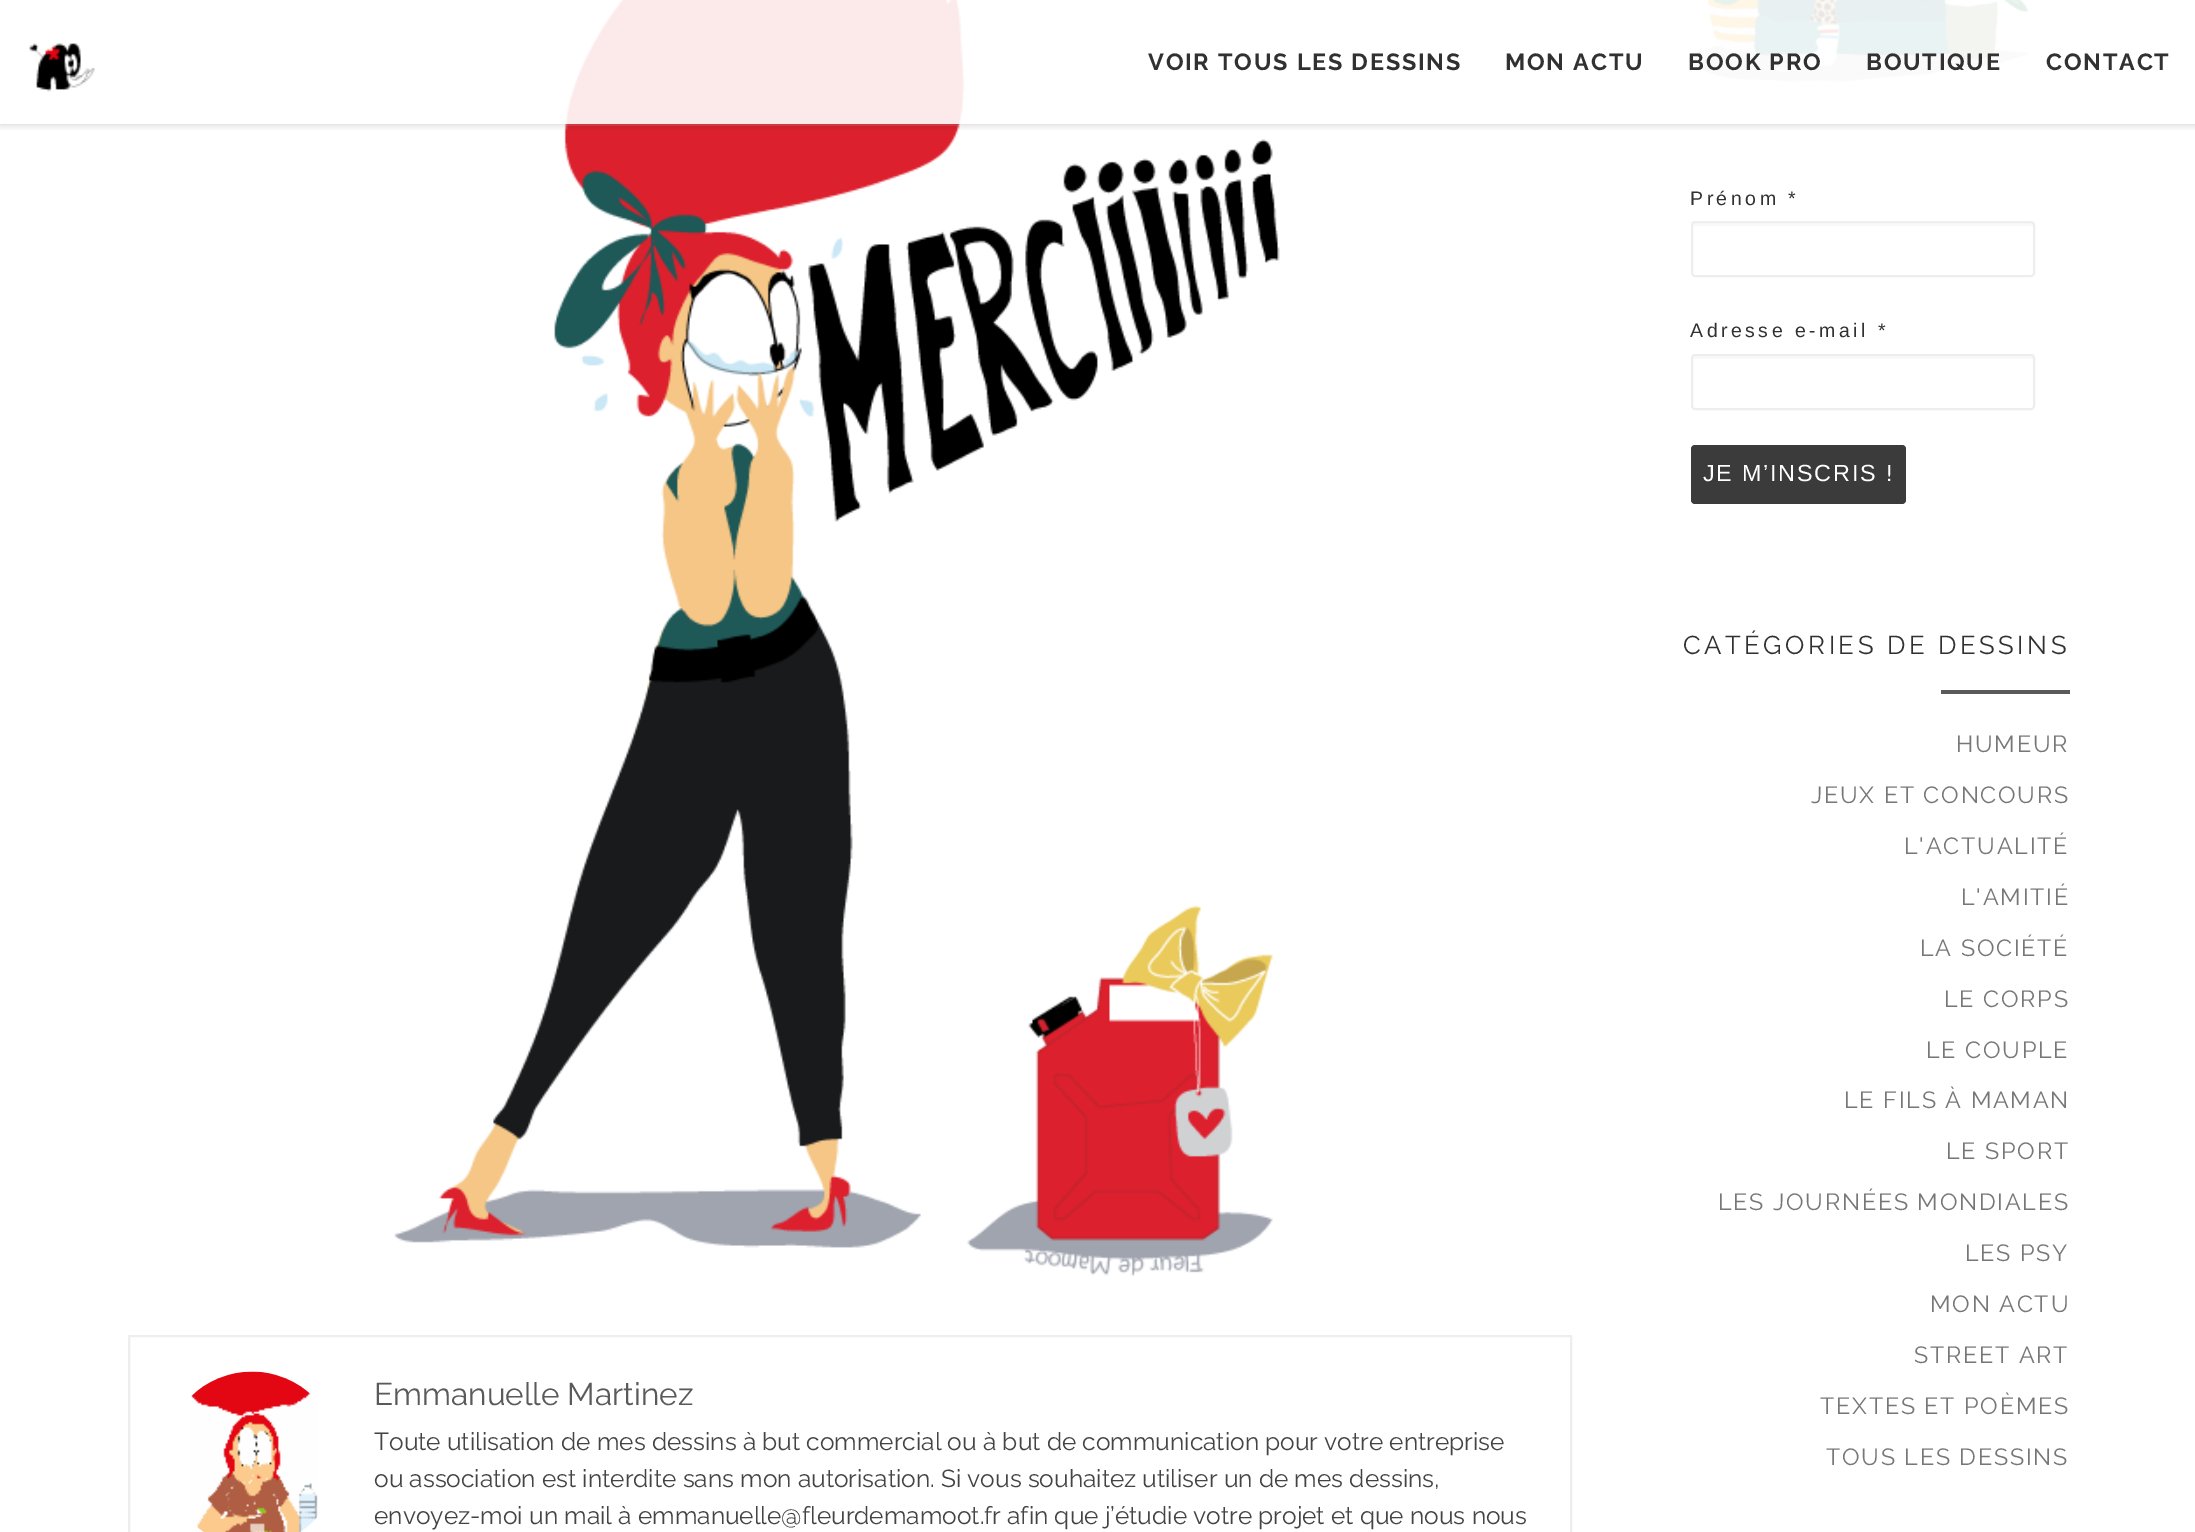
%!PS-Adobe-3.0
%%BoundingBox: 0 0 2195 1532
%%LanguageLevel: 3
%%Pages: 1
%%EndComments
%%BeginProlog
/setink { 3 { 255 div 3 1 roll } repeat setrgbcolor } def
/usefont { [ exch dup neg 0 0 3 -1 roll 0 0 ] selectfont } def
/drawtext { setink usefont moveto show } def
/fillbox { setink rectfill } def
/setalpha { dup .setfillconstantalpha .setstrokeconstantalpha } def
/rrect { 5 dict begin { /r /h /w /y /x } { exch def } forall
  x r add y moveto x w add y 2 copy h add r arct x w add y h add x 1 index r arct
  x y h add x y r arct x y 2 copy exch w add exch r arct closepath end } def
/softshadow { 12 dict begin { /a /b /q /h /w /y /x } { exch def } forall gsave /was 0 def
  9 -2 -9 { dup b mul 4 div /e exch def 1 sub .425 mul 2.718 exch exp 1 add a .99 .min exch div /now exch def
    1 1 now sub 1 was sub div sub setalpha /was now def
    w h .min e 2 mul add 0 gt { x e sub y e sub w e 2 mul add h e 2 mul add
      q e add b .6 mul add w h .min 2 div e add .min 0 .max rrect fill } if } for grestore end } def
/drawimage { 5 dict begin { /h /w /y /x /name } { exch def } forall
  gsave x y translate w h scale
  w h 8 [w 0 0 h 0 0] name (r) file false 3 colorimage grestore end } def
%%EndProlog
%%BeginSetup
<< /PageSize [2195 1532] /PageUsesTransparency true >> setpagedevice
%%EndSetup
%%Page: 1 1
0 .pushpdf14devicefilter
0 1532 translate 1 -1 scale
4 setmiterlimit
0 0 2195 1532 255 255 255 fillbox
(assets/img2.rgb) 394 0 886 1276 drawimage
0.15 setalpha
565 124 395 2 255 255 255 fillbox
1 setalpha
(assets/img4.rgb) 1688 0 342 82 drawimage
gsave
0 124 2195 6 rectclip
0 0 0 setink
0 0 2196 124 0 4.5 0.2 softshadow
grestore
0.9 setalpha
564 0 1466 124 255 255 255 fillbox
1 setalpha
(assets/img1.rgb) 29 43 66 49 drawimage
/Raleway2-Thin 23.4 usefont
49 49 49 setink
1148 70 moveto 1.75 0 (VOIR TOUS LES DESSINS) ashow
1505 70 moveto 1.75 0 (MON ACTU) ashow
1688 70 moveto 1.75 0 (BOOK PRO) ashow
1866 70 moveto 1.75 0 (BOUTIQUE) ashow
2046 70 moveto 1.75 0 (CONTACT) ashow
238 238 238 setink
2 setlinewidth
129 1336 1442 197 rectstroke
(assets/img3.rgb) 191 1371 127 161 drawimage
(Emmanuelle Martinez) 374 1405 /Raleway-Thin 31.5 90 90 90 drawtext
(Toute utilisation de mes dessins à but commercial ou à but de communication pour votre entreprise) 374 1450 /Raleway-Thin 24.5 68 68 68 drawtext
(ou association est interdite sans mon autorisation. Si vous souhaitez utiliser un de mes dessins,) 374 1487 /Raleway-Thin 24.5 68 68 68 drawtext
(envoyez-moi un mail à emmanuelle@fleurdemamoot.fr afin que j’étudie votre projet et que nous nous) 374 1524 /Raleway-Thin 24.5 68 68 68 drawtext
/LiberationSans-Regular 19.5 usefont
49 49 49 setink
1690 205 moveto 3.5 0 (Prénom *) ashow
249 249 249 setink
1694 226 moveto 2032 226 lineto 2033 226 2034 227 2034 228 curveto 2034 226 2035 222 2032 222 curveto 1694 222 lineto 1691 222 1692 226 1692 228 curveto 1692 227 1693 226 1694 226 curveto closepath fill
236 238 239 setink
1692 222 342 54 3 rrect stroke
49 49 49 setink
1690 337 moveto 3.5 0 (Adresse e-mail *) ashow
249 249 249 setink
1694 359 moveto 2032 359 lineto 2033 359 2034 360 2034 360 curveto 2034 357 lineto 2034 356 2033 355 2032 355 curveto 1694 355 lineto 1693 355 1692 356 1692 357 curveto 1692 360 lineto closepath fill
236 238 239 setink
1692 355 342 54 3 rrect stroke
59 59 59 setink
1691 445 215 59 4 rrect fill
/LiberationSans-Regular 23.4 usefont
255 255 255 setink
1703 481 moveto 1.75 0 (JE M’INSCRIS !) ashow
/Raleway-Thin 25.75 usefont
49 49 49 setink
1683 654 moveto 3.5 0 (CATÉGORIES DE DESSINS) ashow
1941 690 129 4 90 90 90 fillbox
/Raleway-Thin 23.4 usefont
119 119 119 setink
1956 752 moveto 1.75 0 (HUMEUR) ashow
1811 803 moveto 1.75 0 (JEUX ET CONCOURS) ashow
1904 854 moveto 1.75 0 (L'ACTUALITÉ) ashow
1961 905 moveto 1.75 0 (L'AMITIÉ) ashow
1920 956 moveto 1.75 0 (LA SOCIÉTÉ) ashow
1944 1007 moveto 1.75 0 (LE CORPS) ashow
1926 1058 moveto 1.75 0 (LE COUPLE) ashow
1844 1108 moveto 1.75 0 (LE FILS À MAMAN) ashow
1946 1159 moveto 1.75 0 (LE SPORT) ashow
1718 1210 moveto 1.75 0 (LES JOURNÉES MONDIALES) ashow
1965 1261 moveto 1.75 0 (LES PSY) ashow
1930 1312 moveto 1.75 0 (MON ACTU) ashow
1914 1363 moveto 1.75 0 (STREET ART) ashow
1820 1414 moveto 1.75 0 (TEXTES ET POÈMES) ashow
1826 1465 moveto 1.75 0 (TOUS LES DESSINS) ashow
.poppdf14devicefilter showpage
%%EOF
